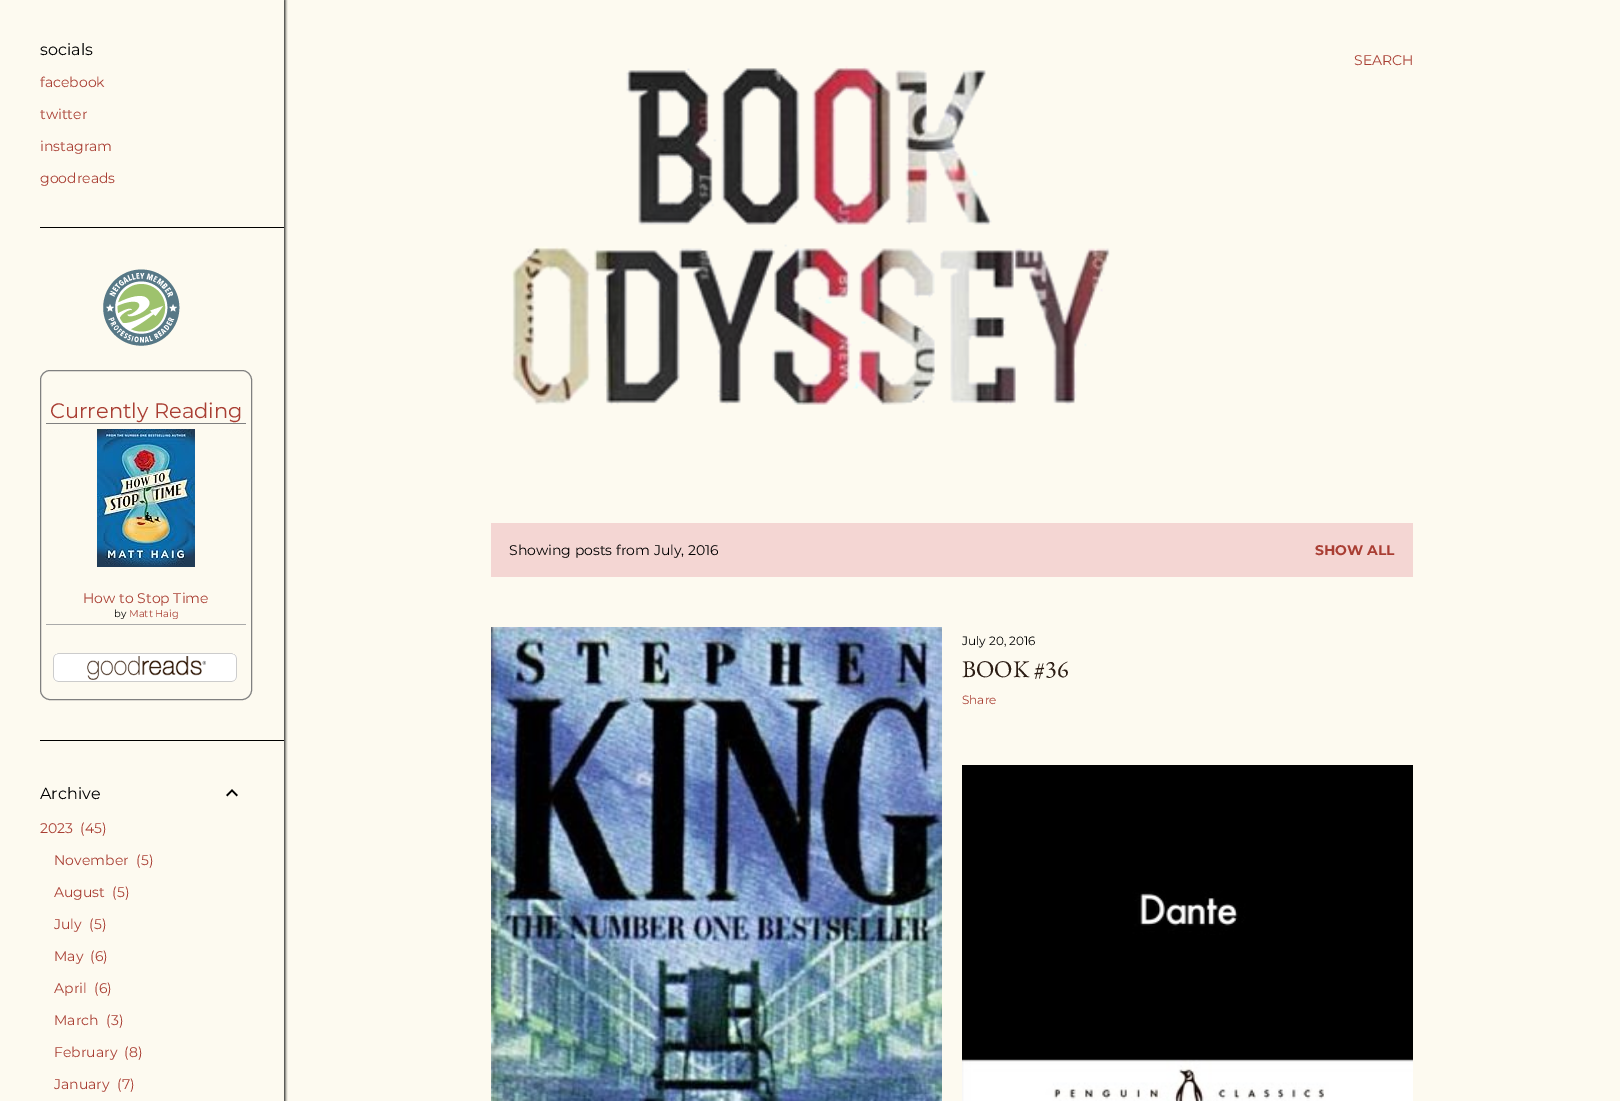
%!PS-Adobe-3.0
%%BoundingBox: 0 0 1620 1101
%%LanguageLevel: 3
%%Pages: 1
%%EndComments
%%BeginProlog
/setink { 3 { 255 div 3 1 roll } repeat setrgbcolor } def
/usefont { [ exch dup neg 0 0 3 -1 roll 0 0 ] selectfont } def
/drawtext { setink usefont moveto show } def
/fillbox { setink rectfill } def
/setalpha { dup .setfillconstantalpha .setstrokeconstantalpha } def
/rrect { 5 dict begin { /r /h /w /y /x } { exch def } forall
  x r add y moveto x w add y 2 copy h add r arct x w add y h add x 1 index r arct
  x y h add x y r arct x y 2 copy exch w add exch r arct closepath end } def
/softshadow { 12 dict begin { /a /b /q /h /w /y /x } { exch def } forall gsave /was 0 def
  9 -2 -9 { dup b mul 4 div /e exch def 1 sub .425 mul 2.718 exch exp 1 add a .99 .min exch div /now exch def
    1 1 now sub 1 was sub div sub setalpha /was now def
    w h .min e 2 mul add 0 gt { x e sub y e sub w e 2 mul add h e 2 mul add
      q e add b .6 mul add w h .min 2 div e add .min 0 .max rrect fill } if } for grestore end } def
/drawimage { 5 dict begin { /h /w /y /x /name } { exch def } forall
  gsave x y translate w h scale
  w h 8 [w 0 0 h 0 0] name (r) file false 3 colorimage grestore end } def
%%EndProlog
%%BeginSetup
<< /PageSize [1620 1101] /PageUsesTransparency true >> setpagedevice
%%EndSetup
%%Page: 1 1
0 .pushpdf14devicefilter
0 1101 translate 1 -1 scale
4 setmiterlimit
0 0 1620 1101 253 250 240 fillbox
gsave
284 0 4 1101 rectclip
0 0 0 setink
1 0 284 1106 0 1.5 1 softshadow
grestore
(socials) 40 55 /Montserrat-Regular 16 0 0 0 drawtext
(facebook) 40 87 /Montserrat-Regular 14 169 62 51 drawtext
(twitter) 40 119 /Montserrat-Regular 14 169 62 51 drawtext
(instagram) 40 151 /Montserrat-Regular 14 169 62 51 drawtext
(goodreads) 40 183 /Montserrat-Regular 14 169 62 51 drawtext
40 227 244 1 0 0 0 fillbox
(assets/img1.rgb) 103 269 77 77 drawimage
128 128 128 setink
40.5 370.5 211 329 9.5 rrect stroke
46 423 200 1 128 128 128 fillbox
(Currently Reading) 50 418 /Montserrat-Regular 21 169 62 51 drawtext
46 624 200 1 170 170 170 fillbox
(assets/img2.rgb) 97 429 98 138 drawimage
(How to Stop Time) 83 603 /Montserrat-Regular 14 169 62 51 drawtext
(by) 114 617 /Montserrat-Regular 10 0 0 0 drawtext
(Matt Haig) 129 617 /Montserrat-Regular 10 169 62 51 drawtext
(assets/img3.rgb) 53 653 184 29 drawimage
40 740 244 1 0 0 0 fillbox
(Archive) 40 799 /Montserrat-Regular 16 0 0 0 drawtext
(assets/img4.rgb) 226 789 12 8 drawimage
(2023) 40 833 /Montserrat-Regular 14 169 62 51 drawtext
(\(45\)) 80 833 /Montserrat-Regular 14 169 62 51 drawtext
(November) 54 865 /Montserrat-Regular 14 169 62 51 drawtext
(\(5\)) 136 865 /Montserrat-Regular 14 169 62 51 drawtext
(August) 54 897 /Montserrat-Regular 14 169 62 51 drawtext
(\(5\)) 112 897 /Montserrat-Regular 14 169 62 51 drawtext
(July) 54 929 /Montserrat-Regular 14 169 62 51 drawtext
(\(5\)) 89 929 /Montserrat-Regular 14 169 62 51 drawtext
(May) 54 961 /Montserrat-Regular 14 169 62 51 drawtext
(\(6\)) 90 961 /Montserrat-Regular 14 169 62 51 drawtext
(April) 54 993 /Montserrat-Regular 14 169 62 51 drawtext
(\(6\)) 94 993 /Montserrat-Regular 14 169 62 51 drawtext
(March) 54 1025 /Montserrat-Regular 14 169 62 51 drawtext
(\(3\)) 106 1025 /Montserrat-Regular 14 169 62 51 drawtext
(February) 54 1057 /Montserrat-Regular 14 169 62 51 drawtext
(\(8\)) 124 1057 /Montserrat-Regular 14 169 62 51 drawtext
(January) 54 1089 /Montserrat-Regular 14 169 62 51 drawtext
(\(7\)) 117 1089 /Montserrat-Regular 14 169 62 51 drawtext
(SEARCH) 1354 65 /Montserrat-Regular 14 169 62 51 drawtext
(assets/img5.rgb) 511 66 599 339 drawimage
491 523 922 54 244 214 211 fillbox
(Showing posts from July, 2016) 509 555 /Montserrat-Regular 14 0 0 0 drawtext
(SHOW ALL) 1315 555 /Montserrat-Bold 14 169 62 51 drawtext
(assets/img6.rgb) 491 627 451 474 drawimage
(July 20, 2016) 962 645 /Montserrat-Regular 12 0 0 0 drawtext
(BOOK #36) 962 677 /EBGaramond-Regular 24 44 29 20 drawtext
(Share) 962 704 /Montserrat-Regular 12 169 62 51 drawtext
(assets/img7.rgb) 962 765 451 336 drawimage
.poppdf14devicefilter showpage
%%EOF
